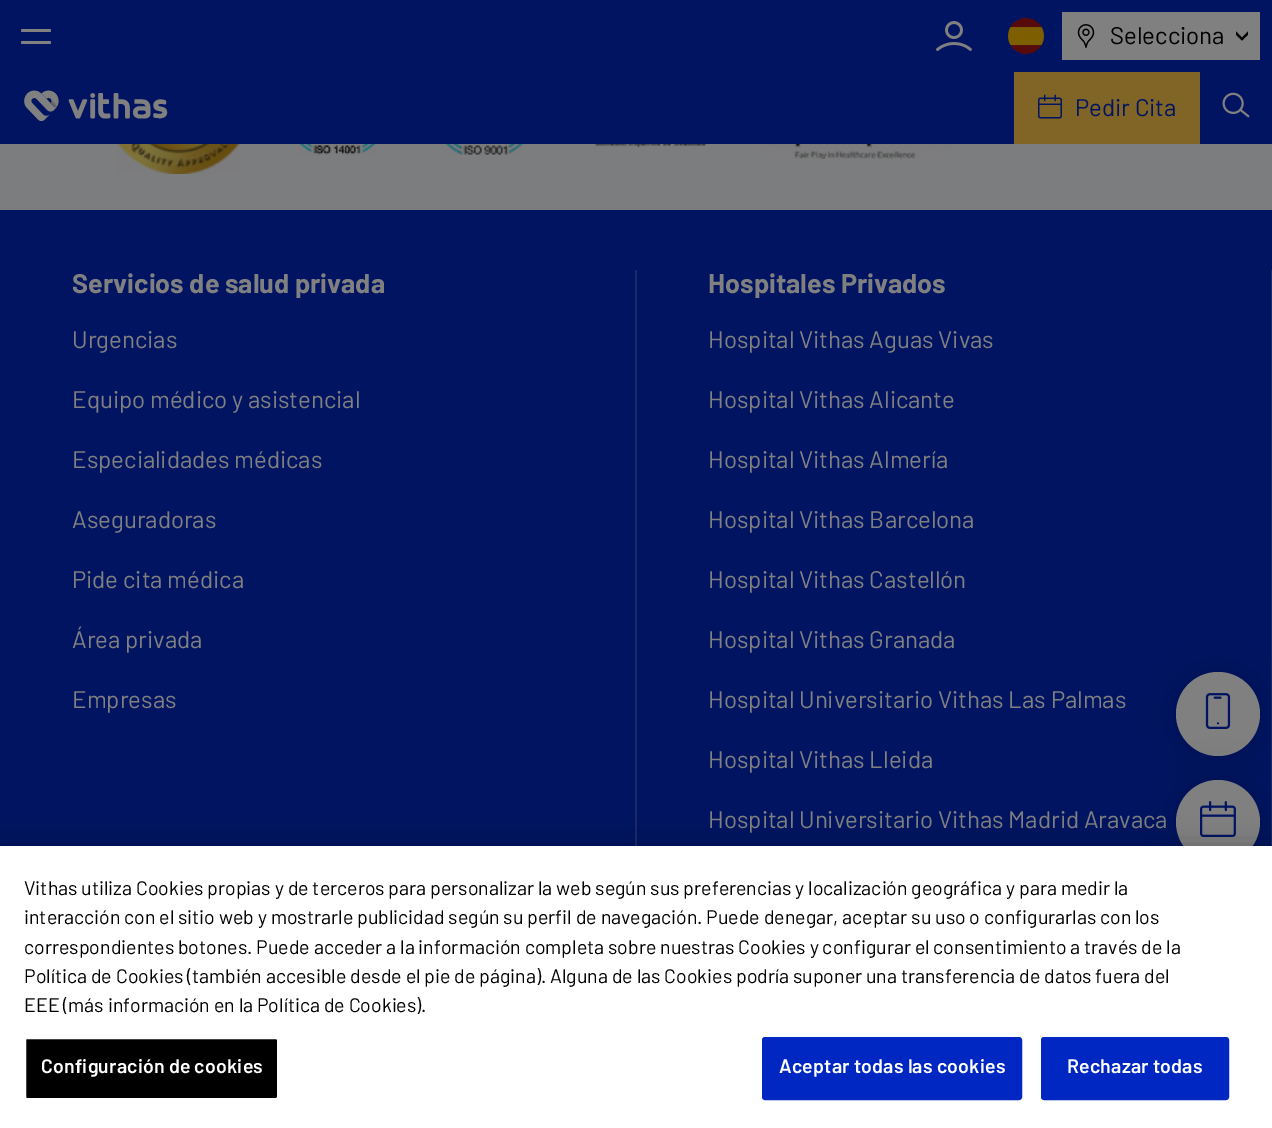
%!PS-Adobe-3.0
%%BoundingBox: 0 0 1272 1128
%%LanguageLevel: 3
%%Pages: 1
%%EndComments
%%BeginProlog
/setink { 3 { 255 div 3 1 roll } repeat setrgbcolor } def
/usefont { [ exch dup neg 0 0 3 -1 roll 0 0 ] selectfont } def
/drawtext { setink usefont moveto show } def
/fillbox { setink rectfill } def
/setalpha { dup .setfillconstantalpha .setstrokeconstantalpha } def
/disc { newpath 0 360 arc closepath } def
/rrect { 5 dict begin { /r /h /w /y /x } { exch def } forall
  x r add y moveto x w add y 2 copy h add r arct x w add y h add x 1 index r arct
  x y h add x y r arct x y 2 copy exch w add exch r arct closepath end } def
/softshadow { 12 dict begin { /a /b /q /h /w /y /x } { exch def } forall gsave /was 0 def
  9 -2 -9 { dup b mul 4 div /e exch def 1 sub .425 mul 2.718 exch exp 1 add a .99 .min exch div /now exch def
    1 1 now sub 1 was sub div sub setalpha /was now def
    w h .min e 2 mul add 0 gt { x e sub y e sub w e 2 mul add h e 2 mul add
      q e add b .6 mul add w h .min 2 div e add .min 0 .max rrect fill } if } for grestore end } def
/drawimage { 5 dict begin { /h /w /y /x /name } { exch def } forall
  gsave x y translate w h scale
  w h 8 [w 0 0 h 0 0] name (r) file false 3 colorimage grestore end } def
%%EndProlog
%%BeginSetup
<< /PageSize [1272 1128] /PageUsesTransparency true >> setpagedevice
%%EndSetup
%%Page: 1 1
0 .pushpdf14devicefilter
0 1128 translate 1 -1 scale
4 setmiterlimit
0 0 1272 1128 0 20 97 fillbox
128 128 128 setink
21 29 30 3 1.5 rrect fill
21 41 30 3 1.5 rrect fill
(assets/img1.rgb) 936 21 36 30 drawimage
(assets/img2.rgb) 1008 18 36 36 drawimage
1062 12 198 48 128 128 128 fillbox
(assets/img3.rgb) 1077 24 18 24 drawimage
(Selecciona) 1110 44 /Barlow-Regular 24 0 0 0 drawtext
(assets/img4.rgb) 1236 31 12 10 drawimage
(assets/img5.rgb) 24 90 144 31 drawimage
1014 72 186 72 128 101 38 fillbox
(assets/img6.rgb) 1038 94 24 25 drawimage
(Pedir Cita) 1075 116 /Barlow-Regular 24 0 20 97 drawtext
(assets/img7.rgb) 1222 92 28 26 drawimage
0 144 1272 66 124 125 126 fillbox
(assets/img8.rgb) 117 144 124 30 drawimage
(assets/img9.rgb) 298 144 79 11 drawimage
(assets/img10.rgb) 445 144 79 11 drawimage
(assets/img11.rgb) 595 144 112 4 drawimage
(assets/img12.rgb) 759 144 192 15 drawimage
635 270 2 576 26 41 103 fillbox
(Servicios de salud privada) 72 293 /Barlow-Bold 27 128 128 128 drawtext
(Urgencias) 72 348 /Barlow-Regular 24 128 128 128 drawtext
(Equipo médico y asistencial) 72 408 /Barlow-Regular 24 128 128 128 drawtext
(Especialidades médicas) 72 468 /Barlow-Regular 24 128 128 128 drawtext
(Aseguradoras) 72 528 /Barlow-Regular 24 128 128 128 drawtext
(Pide cita médica) 72 588 /Barlow-Regular 24 128 128 128 drawtext
(Área privada) 72 648 /Barlow-Regular 24 128 128 128 drawtext
(Empresas) 72 708 /Barlow-Regular 24 128 128 128 drawtext
1271 270 1 576 26 41 103 fillbox
(Hospitales Privados) 708 293 /Barlow-Bold 27 128 128 128 drawtext
(Hospital Vithas Aguas Vivas) 708 348 /Barlow-Regular 24 128 128 128 drawtext
(Hospital Vithas Alicante) 708 408 /Barlow-Regular 24 128 128 128 drawtext
(Hospital Vithas Almería) 708 468 /Barlow-Regular 24 128 128 128 drawtext
(Hospital Vithas Barcelona) 708 528 /Barlow-Regular 24 128 128 128 drawtext
(Hospital Vithas Castellón) 708 588 /Barlow-Regular 24 128 128 128 drawtext
(Hospital Vithas Granada) 708 648 /Barlow-Regular 24 128 128 128 drawtext
(Hospital Universitario Vithas Las Palmas) 708 708 /Barlow-Regular 24 128 128 128 drawtext
(Hospital Vithas Lleida) 708 768 /Barlow-Regular 24 128 128 128 drawtext
(Hospital Universitario Vithas Madrid Aravaca) 708 828 /Barlow-Regular 24 128 128 128 drawtext
0 0 0 setink
1176 672 84 84 42 19 0.15 softshadow
128 128 128 setink
1218 714 42 disc fill
(assets/img13.rgb) 1205 693 26 36 drawimage
0 0 0 setink
1176 780 84 84 42 19 0.15 softshadow
128 128 128 setink
1218 822 42 disc fill
(assets/img14.rgb) 1200 801 36 36 drawimage
0 0 0 setink
0 846 1272 282 0 13.5 0.2 softshadow
0 846 1272 282 255 255 255 fillbox
(Vithas utiliza Cookies propias y de terceros para personalizar la web según sus preferencias y localización geográfica y para medir la) 24 895 /Barlow-Regular 19.5 0 0 0 drawtext
(interacción con el sitio web y mostrarle publicidad según su perfil de navegación. Puede denegar, aceptar su uso o configurarlas con los) 24 924 /Barlow-Regular 19.5 0 0 0 drawtext
(correspondientes botones. Puede acceder a la información completa sobre nuestras Cookies y configurar el consentimiento a través de la) 24 954 /Barlow-Regular 19.5 0 0 0 drawtext
(Política de Cookies \(también accesible desde el pie de página\). Alguna de las Cookies podría suponer una transferencia de datos fuera del) 24 983 /Barlow-Regular 19.5 0 0 0 drawtext
(EEE \(más información en la Política de Cookies\).) 24 1012 /Barlow-Regular 19.5 0 0 0 drawtext
25 1038 253 61 2 rrect gsave fill grestore
255 255 255 setink
2 setlinewidth
stroke
/Barlow-SemiBold 19.5 usefont
41 1073 moveto 0.2 0 (Configuración de cookies) ashow
0 39 194 setink
763 1038 258 61 2 rrect gsave fill grestore
stroke
255 255 255 setink
779 1073 moveto 0.2 0 (Aceptar todas las cookies) ashow
0 39 194 setink
1042 1038 186 61 2 rrect gsave fill grestore
stroke
255 255 255 setink
1067 1073 moveto 0.2 0 (Rechazar todas) ashow
.poppdf14devicefilter showpage
%%EOF
